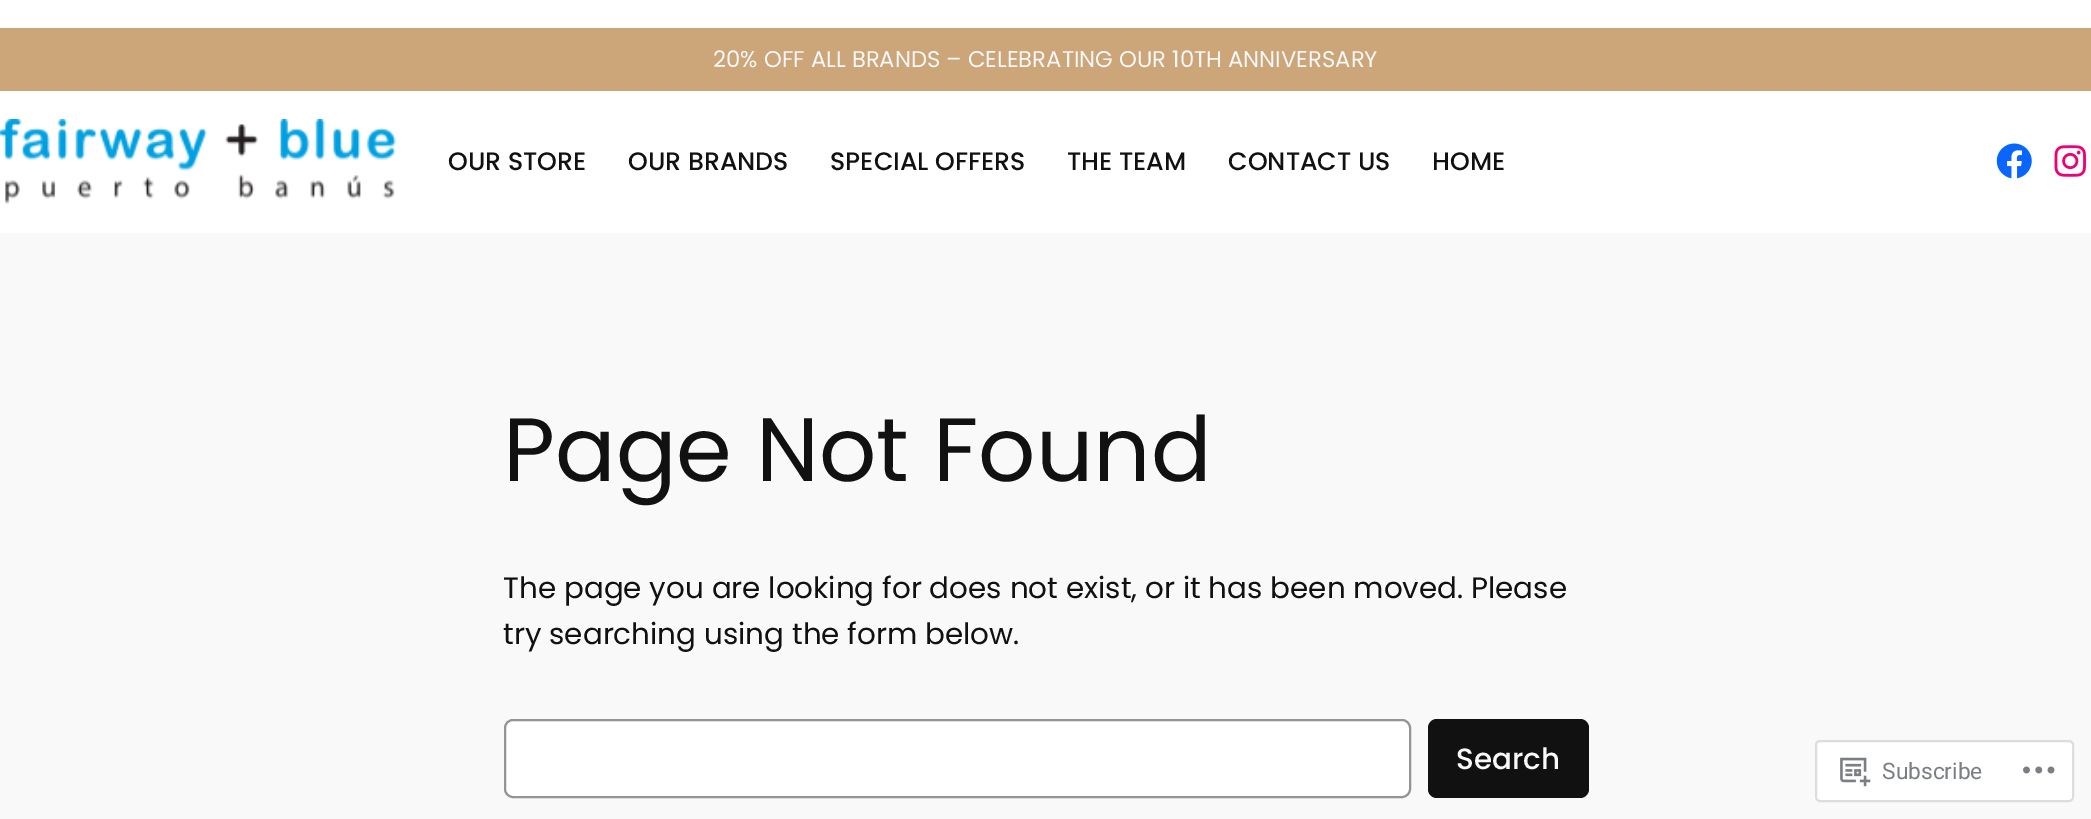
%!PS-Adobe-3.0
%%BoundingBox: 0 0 2091 819
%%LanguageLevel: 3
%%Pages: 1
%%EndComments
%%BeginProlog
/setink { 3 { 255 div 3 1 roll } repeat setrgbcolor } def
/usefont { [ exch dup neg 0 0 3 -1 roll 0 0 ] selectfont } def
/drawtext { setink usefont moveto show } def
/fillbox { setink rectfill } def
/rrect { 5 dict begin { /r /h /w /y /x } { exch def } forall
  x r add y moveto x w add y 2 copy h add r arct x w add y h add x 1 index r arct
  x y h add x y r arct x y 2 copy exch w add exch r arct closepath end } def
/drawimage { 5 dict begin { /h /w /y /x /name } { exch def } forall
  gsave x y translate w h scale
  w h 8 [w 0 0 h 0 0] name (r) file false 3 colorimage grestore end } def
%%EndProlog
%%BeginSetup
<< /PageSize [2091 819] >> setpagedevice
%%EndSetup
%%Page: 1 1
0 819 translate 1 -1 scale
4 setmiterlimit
0 0 2091 819 249 249 249 fillbox
0 0 2091 233 255 255 255 fillbox
0 28 2091 63 204 165 121 fillbox
(20% OFF ALL BRANDS – CELEBRATING OUR 10TH ANNIVERSARY) 713 67 /Poppins-Regular 22.75 249 249 249 drawtext
(assets/img1.rgb) 0 119 396 85 drawimage
(OUR STORE) 448 170 /Poppins-Medium 25.25 17 17 17 drawtext
(OUR BRANDS) 628 170 /Poppins-Medium 25.25 17 17 17 drawtext
(SPECIAL OFFERS) 830 170 /Poppins-Medium 25.25 17 17 17 drawtext
(THE TEAM) 1067 170 /Poppins-Medium 25.25 17 17 17 drawtext
(CONTACT US) 1228 170 /Poppins-Medium 25.25 17 17 17 drawtext
(HOME) 1432 170 /Poppins-Medium 25.25 17 17 17 drawtext
(assets/img2.rgb) 1996 143 36 36 drawimage
(assets/img3.rgb) 2054 145 32 32 drawimage
(Page Not Found) 503 481 /Poppins-Regular 89.75 17 17 17 drawtext
(The page you are looking for does not exist, or it has been moved. Please) 503 598 /Poppins-Regular 29.4 17 17 17 drawtext
(try searching using the form below.) 503 644 /Poppins-Regular 29.4 17 17 17 drawtext
255 255 255 setink
505 720 905 77 8 rrect gsave fill grestore
148 148 148 setink
2 setlinewidth
stroke
17 17 17 setink
1428 719 161 79 9 rrect fill
(Search) 1456 769 /Poppins-Medium 29.4 249 249 249 drawtext
255 255 255 setink
1816 741 257 60 4 rrect gsave fill grestore
221 221 223 setink
stroke
(assets/img4.rgb) 1840 757 31 30 drawimage
(Subscribe) 1882 779 /Roboto-Regular 22.75 123 127 132 drawtext
(assets/img5.rgb) 2023 766 32 8 drawimage
showpage
%%EOF
